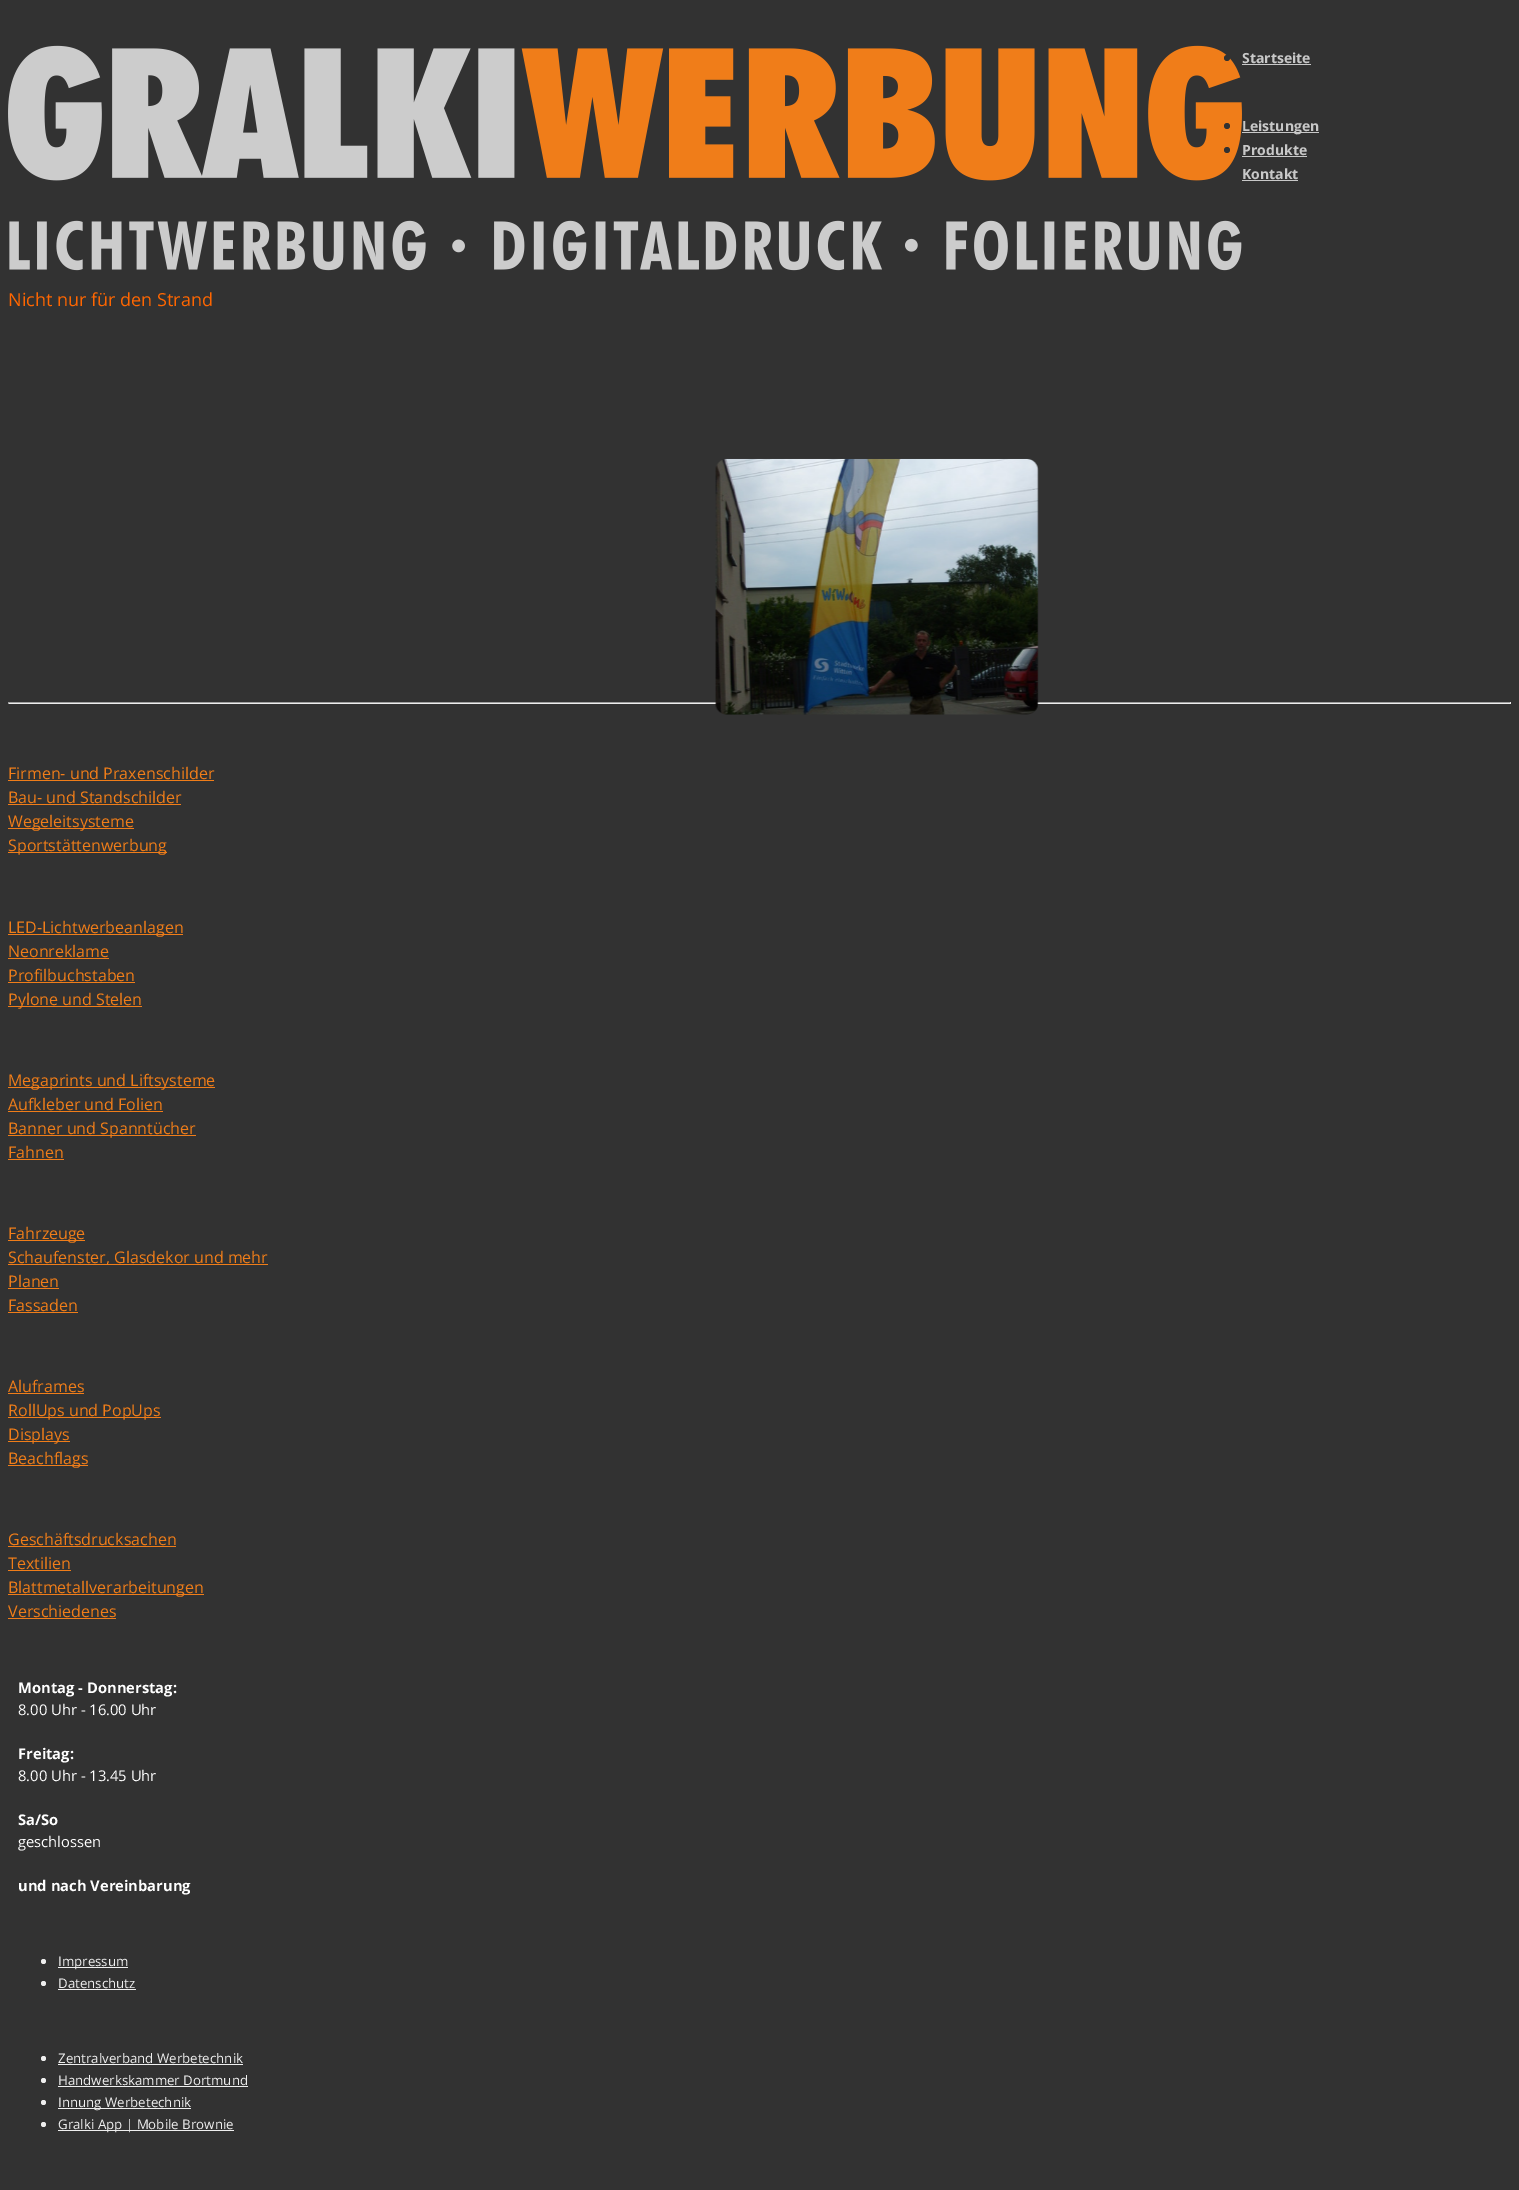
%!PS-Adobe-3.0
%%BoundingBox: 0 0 1519 2190
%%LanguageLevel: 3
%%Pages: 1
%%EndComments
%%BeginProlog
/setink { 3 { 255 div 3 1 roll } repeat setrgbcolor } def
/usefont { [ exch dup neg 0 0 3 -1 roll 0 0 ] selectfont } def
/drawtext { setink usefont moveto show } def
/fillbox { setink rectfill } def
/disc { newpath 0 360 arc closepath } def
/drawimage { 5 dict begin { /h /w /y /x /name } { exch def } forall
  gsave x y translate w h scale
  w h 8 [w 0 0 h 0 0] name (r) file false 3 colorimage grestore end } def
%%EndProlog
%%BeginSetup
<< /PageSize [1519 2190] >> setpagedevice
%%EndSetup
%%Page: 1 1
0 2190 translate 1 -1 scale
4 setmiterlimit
0 0 1519 2190 50 50 50 fillbox
(assets/img1.rgb) 8 45 1234 226 drawimage
1227 58 3 disc fill
(Startseite) 1242 63 /OpenSans-Bold 14 200 200 200 drawtext
1242 64 69 1 200 200 200 fillbox
50 50 50 setink
1227 126 3 disc fill
1242 132 77 1 200 200 200 fillbox
(Leistungen) 1242 131 /OpenSans-Bold 14 200 200 200 drawtext
50 50 50 setink
1227 150 3 disc fill
(Produkte) 1242 155 /OpenSans-Bold 14 200 200 200 drawtext
1242 156 65 1 200 200 200 fillbox
(Kontakt) 1242 179 /OpenSans-Bold 14 200 200 200 drawtext
1242 180 56 1 200 200 200 fillbox
(Nicht nur für den Strand) 8 306 /OpenSans-Regular 18 255 102 0 drawtext
8 702 1503 1 159 159 159 fillbox
1510 702 1 2 238 238 238 fillbox
8 703 1503 1 238 238 238 fillbox
(assets/img2.rgb) 715 458 324 257 drawimage
8 702 1 2 159 159 159 fillbox
(Firmen- und Praxenschilder) 8 779 /OpenSans-Regular 16 240 125 25 drawtext
8 780 206 1 240 125 25 fillbox
(Bau- und Standschilder) 8 803 /OpenSans-Regular 16 240 125 25 drawtext
8 804 173 1 240 125 25 fillbox
8 828 126 1 240 125 25 fillbox
(Wegeleitsysteme) 8 827 /OpenSans-Regular 16 240 125 25 drawtext
8 852 159 1 240 125 25 fillbox
(Sportstättenwerbung) 8 851 /OpenSans-Regular 16 240 125 25 drawtext
8 934 175 1 240 125 25 fillbox
(LED-Lichtwerbeanlagen) 8 933 /OpenSans-Regular 16 240 125 25 drawtext
(Neonreklame) 8 957 /OpenSans-Regular 16 240 125 25 drawtext
8 958 101 1 240 125 25 fillbox
(Profilbuchstaben) 8 981 /OpenSans-Regular 16 240 125 25 drawtext
8 982 127 1 240 125 25 fillbox
8 1006 134 1 240 125 25 fillbox
(Pylone und Stelen) 8 1005 /OpenSans-Regular 16 240 125 25 drawtext
8 1087 207 1 240 125 25 fillbox
(Megaprints und Liftsysteme) 8 1086 /OpenSans-Regular 16 240 125 25 drawtext
(Aufkleber und Folien) 8 1110 /OpenSans-Regular 16 240 125 25 drawtext
8 1111 155 1 240 125 25 fillbox
8 1135 188 1 240 125 25 fillbox
(Banner und Spanntücher) 8 1134 /OpenSans-Regular 16 240 125 25 drawtext
(Fahnen) 8 1158 /OpenSans-Regular 16 240 125 25 drawtext
8 1159 56 1 240 125 25 fillbox
8 1240 77 1 240 125 25 fillbox
(Fahrzeuge) 8 1239 /OpenSans-Regular 16 240 125 25 drawtext
8 1264 260 1 240 125 25 fillbox
(Schaufenster, Glasdekor und mehr) 8 1263 /OpenSans-Regular 16 240 125 25 drawtext
(Planen) 8 1287 /OpenSans-Regular 16 240 125 25 drawtext
8 1288 51 1 240 125 25 fillbox
(Fassaden) 8 1311 /OpenSans-Regular 16 240 125 25 drawtext
8 1312 70 1 240 125 25 fillbox
(Aluframes) 8 1392 /OpenSans-Regular 16 240 125 25 drawtext
8 1393 76 1 240 125 25 fillbox
8 1417 153 1 240 125 25 fillbox
(RollUps und PopUps) 8 1416 /OpenSans-Regular 16 240 125 25 drawtext
8 1441 62 1 240 125 25 fillbox
(Displays) 8 1440 /OpenSans-Regular 16 240 125 25 drawtext
8 1465 80 1 240 125 25 fillbox
(Beachflags) 8 1464 /OpenSans-Regular 16 240 125 25 drawtext
(Geschäftsdrucksachen) 8 1545 /OpenSans-Regular 16 240 125 25 drawtext
8 1546 168 1 240 125 25 fillbox
(Textilien) 8 1569 /OpenSans-Regular 16 240 125 25 drawtext
8 1570 63 1 240 125 25 fillbox
8 1594 196 1 240 125 25 fillbox
(Blattmetallverarbeitungen) 8 1593 /OpenSans-Regular 16 240 125 25 drawtext
(Verschiedenes) 8 1617 /OpenSans-Regular 16 240 125 25 drawtext
8 1618 108 1 240 125 25 fillbox
(Montag - Donnerstag:) 18 1693 /OpenSans-Bold 14.75 255 255 255 drawtext
(8.00 Uhr - 16.00 Uhr) 18 1715 /OpenSans-Regular 14.75 255 255 255 drawtext
(Freitag:) 18 1759 /OpenSans-Bold 14.75 255 255 255 drawtext
(8.00 Uhr - 13.45 Uhr) 18 1781 /OpenSans-Regular 14.75 255 255 255 drawtext
(Sa/So) 18 1825 /OpenSans-Bold 14.75 255 255 255 drawtext
(geschlossen) 18 1847 /OpenSans-Regular 14.75 255 255 255 drawtext
(und nach Vereinbarung) 18 1891 /OpenSans-Bold 14.75 255 255 255 drawtext
239 239 239 setink
43.5 1961.5 2.5 disc fill
58 1967 70 1 239 239 239 fillbox
(Impressum) 58 1966 /OpenSans-Regular 13.3 239 239 239 drawtext
43.5 1983.5 2.5 disc fill
(Datenschutz) 58 1988 /OpenSans-Regular 13.3 239 239 239 drawtext
58 1989 78 1 239 239 239 fillbox
43.5 2058.5 2.5 disc fill
(Zentralverband Werbetechnik) 58 2063 /OpenSans-Regular 13.3 239 239 239 drawtext
58 2064 185 1 239 239 239 fillbox
43.5 2080.5 2.5 disc fill
(Handwerkskammer Dortmund) 58 2085 /OpenSans-Regular 13.3 239 239 239 drawtext
58 2086 190 1 239 239 239 fillbox
43.5 2102.5 2.5 disc fill
58 2108 133 1 239 239 239 fillbox
(Innung Werbetechnik) 58 2107 /OpenSans-Regular 13.3 239 239 239 drawtext
43.5 2124.5 2.5 disc fill
58 2130 176 1 239 239 239 fillbox
(Gralki App | Mobile Brownie) 58 2129 /OpenSans-Regular 13.3 239 239 239 drawtext
showpage
%%EOF
